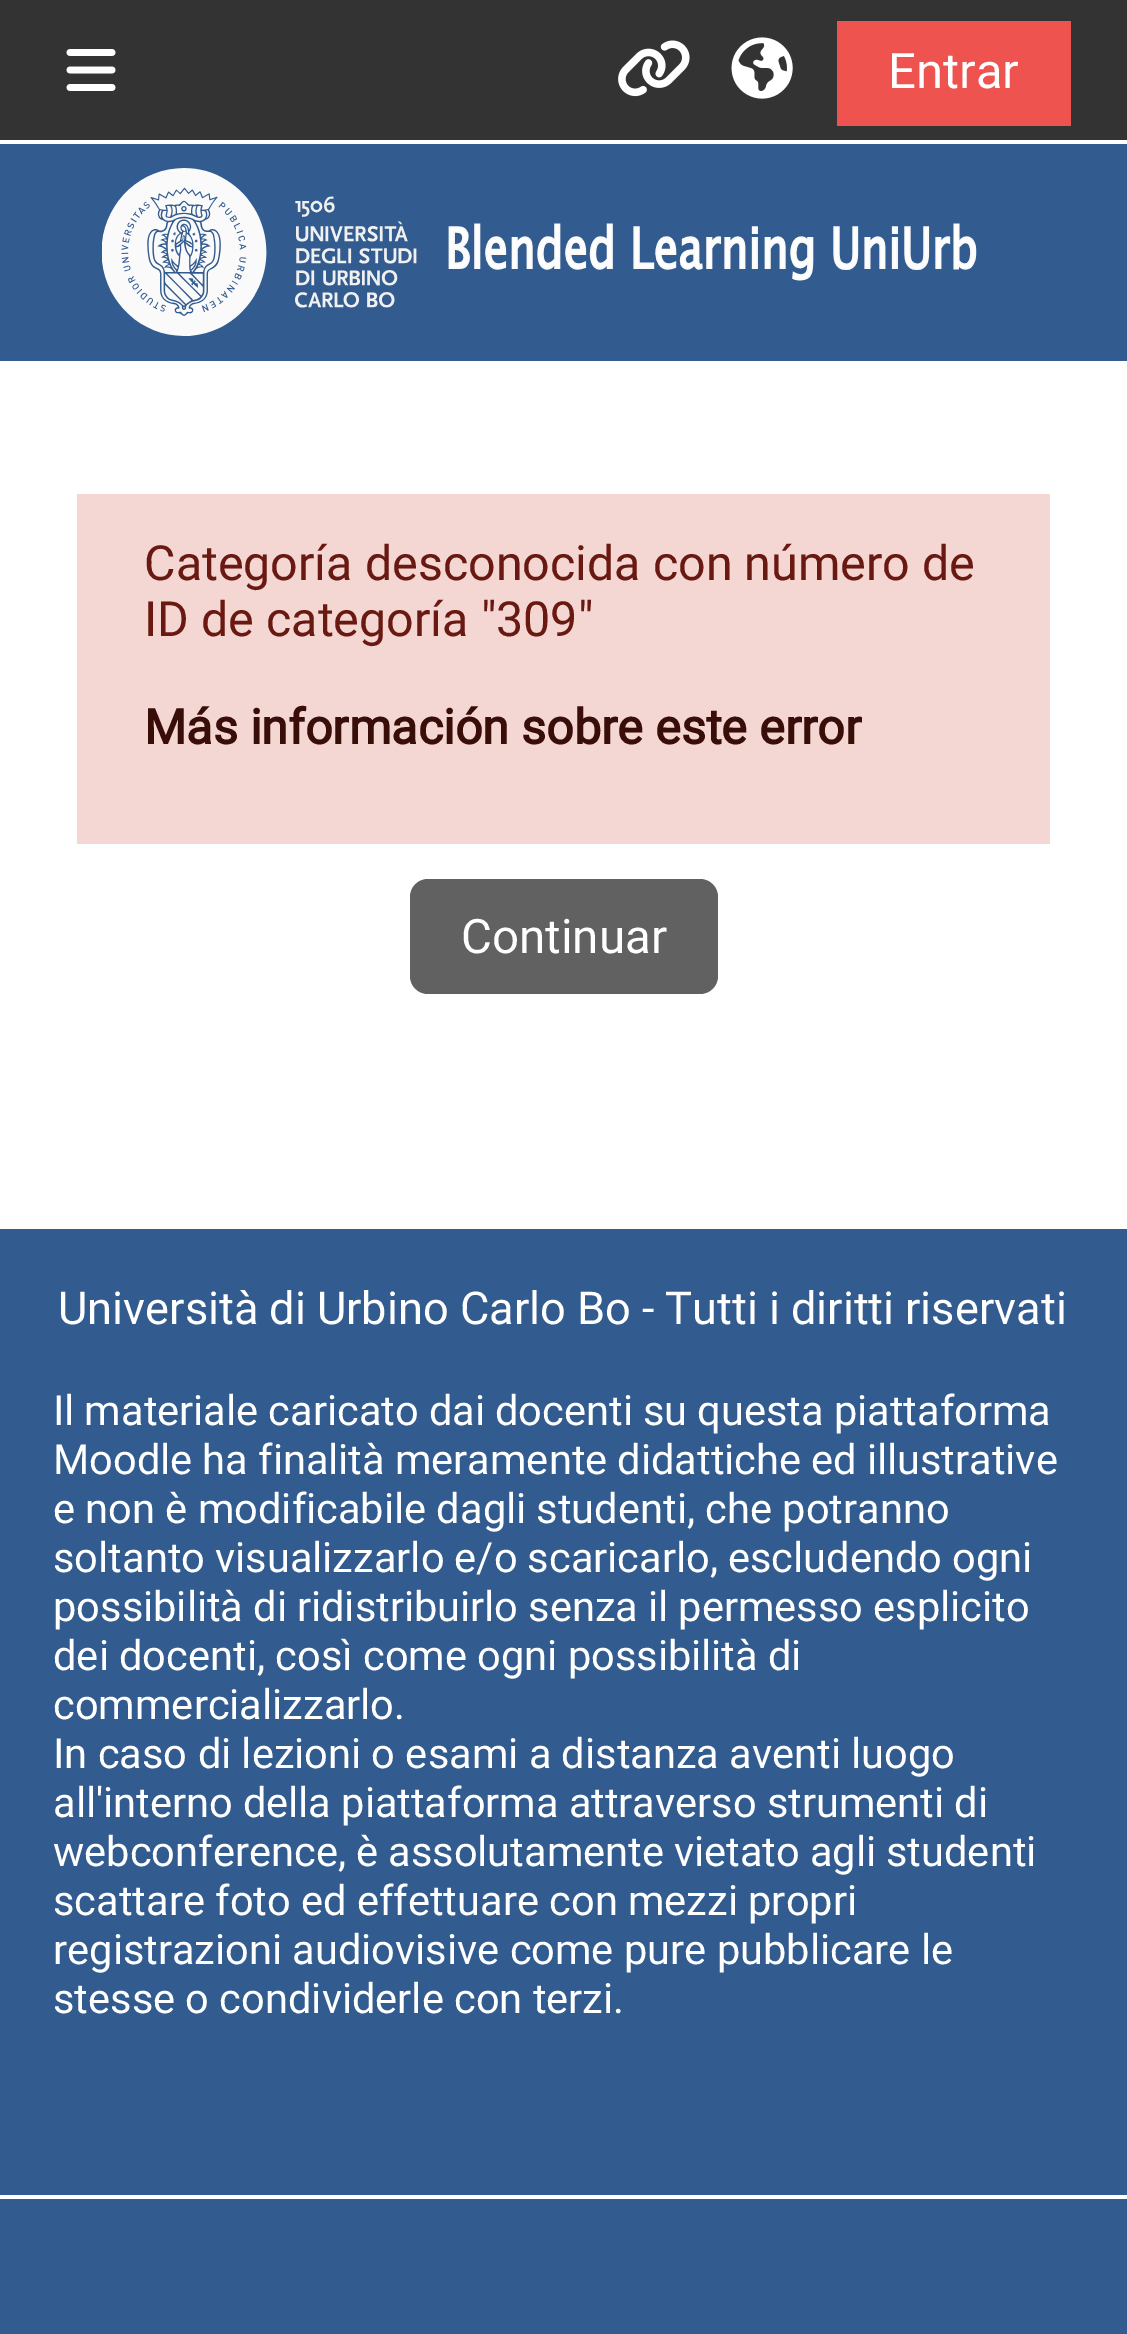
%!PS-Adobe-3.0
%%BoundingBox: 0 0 1127 2334
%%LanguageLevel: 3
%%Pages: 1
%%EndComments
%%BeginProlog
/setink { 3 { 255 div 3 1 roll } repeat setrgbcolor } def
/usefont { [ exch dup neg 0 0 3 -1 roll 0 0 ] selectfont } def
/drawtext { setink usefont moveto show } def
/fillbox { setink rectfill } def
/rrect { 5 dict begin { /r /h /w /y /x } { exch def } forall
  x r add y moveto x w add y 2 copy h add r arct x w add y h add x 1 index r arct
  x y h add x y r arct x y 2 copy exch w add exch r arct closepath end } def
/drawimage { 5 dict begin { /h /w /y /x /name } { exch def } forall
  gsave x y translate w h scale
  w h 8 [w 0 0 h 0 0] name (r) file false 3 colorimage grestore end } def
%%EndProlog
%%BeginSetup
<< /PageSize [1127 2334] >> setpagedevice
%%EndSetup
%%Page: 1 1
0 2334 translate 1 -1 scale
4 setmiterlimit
0 0 1127 2334 255 255 255 fillbox
0 144 1127 217 50 91 143 fillbox
0 0 1127 140 51 51 51 fillbox
(assets/img1.rgb) 66 49 50 42 drawimage
(assets/img2.rgb) 618 40 72 57 drawimage
(assets/img3.rgb) 731 37 62 62 drawimage
837 21 234 105 239 83 80 fillbox
(Entrar) 888 88 /Roboto-Regular 49 255 255 255 drawtext
(assets/img4.rgb) 102 168 875 168 drawimage
77 494 973 350 244 214 210 fillbox
(Categoría desconocida con número de) 144 580 /Roboto-Regular 48.4 105 25 17 drawtext
(ID de categoría "309") 144 636 /Roboto-Regular 48.4 105 25 17 drawtext
(Más información sobre este error) 144 744 /Roboto-Bold 48.4 57 14 9 drawtext
97 97 97 setink
410 879 308 115 18 rrect fill
(Continuar) 461 953 /Roboto-Regular 47.5 255 255 255 drawtext
0 1229 1127 1105 50 91 143 fillbox
/Roboto-Regular 45.25 usefont
255 255 255 setink
58 1324 moveto -0.25 0 32 (Università di Urbino Carlo Bo - Tutti i diritti riservati) widthshow
/Roboto-Regular 41.6 usefont
53 1425 moveto -0.25 0 32 (Il materiale caricato dai docenti su questa piattaforma) widthshow
53 1474 moveto -0.25 0 32 (Moodle ha finalità meramente didattiche ed illustrative) widthshow
(e non è modificabile dagli studenti, che potranno) 53 1523 /Roboto-Regular 41.6 255 255 255 drawtext
53 1572 moveto -0.25 0 32 (soltanto visualizzarlo e/o scaricarlo, escludendo ogni) widthshow
53 1621 moveto -0.25 0 32 (possibilità di ridistribuirlo senza il permesso esplicito) widthshow
(dei docenti, così come ogni possibilità di) 53 1670 /Roboto-Regular 41.6 255 255 255 drawtext
(commercializzarlo.) 53 1719 /Roboto-Regular 41.6 255 255 255 drawtext
(In caso di lezioni o esami a distanza aventi luogo) 53 1768 /Roboto-Regular 41.6 255 255 255 drawtext
53 1817 moveto -0.25 0 32 (all'interno della piattaforma attraverso strumenti di) widthshow
53 1866 moveto -0.25 0 32 (webconference, è assolutamente vietato agli studenti) widthshow
(scattare foto ed effettuare con mezzi propri) 53 1915 /Roboto-Regular 41.6 255 255 255 drawtext
(registrazioni audiovisive come pure pubblicare le) 53 1964 /Roboto-Regular 41.6 255 255 255 drawtext
(stesse o condividerle con terzi.) 53 2013 /Roboto-Regular 41.6 255 255 255 drawtext
0 2195 1127 4 255 255 255 fillbox
showpage
%%EOF
